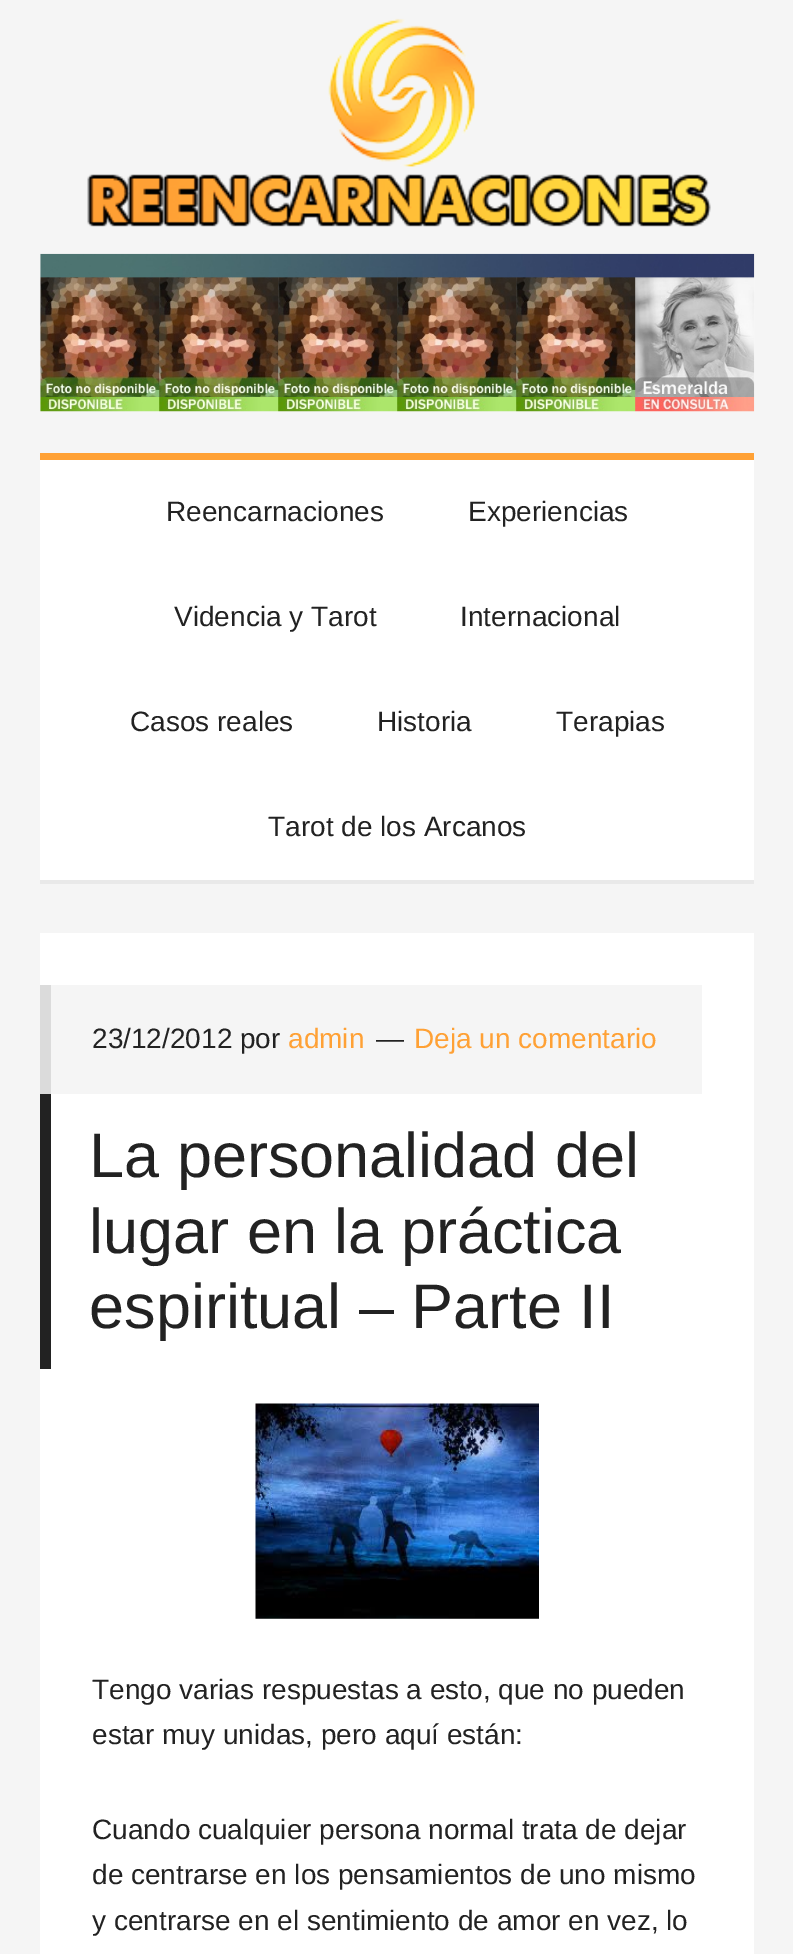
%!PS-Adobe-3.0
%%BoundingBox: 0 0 793 1954
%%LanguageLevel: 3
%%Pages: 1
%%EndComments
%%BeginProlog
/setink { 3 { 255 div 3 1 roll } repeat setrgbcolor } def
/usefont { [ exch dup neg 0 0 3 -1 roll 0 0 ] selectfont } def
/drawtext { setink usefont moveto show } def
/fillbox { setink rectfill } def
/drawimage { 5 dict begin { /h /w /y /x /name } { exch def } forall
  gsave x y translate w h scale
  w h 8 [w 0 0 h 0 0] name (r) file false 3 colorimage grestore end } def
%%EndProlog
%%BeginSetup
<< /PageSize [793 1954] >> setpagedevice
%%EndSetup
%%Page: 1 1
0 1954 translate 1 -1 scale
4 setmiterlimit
0 0 793 1954 245 245 245 fillbox
(assets/img1.rgb) 87 18 624 209 drawimage
(assets/img2.rgb) 40 253 715 159 drawimage
233 233 233 setink
40 457 moveto 40 884 lineto 754 884 lineto 754 880 lineto 40 880 lineto closepath fill
40 460 714 420 255 255 255 fillbox
40 453 714 7 255 161 53 fillbox
(Reencarnaciones) 166 521 /LiberationSans-Regular 28 34 34 34 drawtext
(Experiencias) 468 521 /LiberationSans-Regular 28 34 34 34 drawtext
(Videncia y Tarot) 174 626 /LiberationSans-Regular 28 34 34 34 drawtext
(Internacional) 460 626 /LiberationSans-Regular 28 34 34 34 drawtext
(Casos reales) 130 731 /LiberationSans-Regular 28 34 34 34 drawtext
(Historia) 377 731 /LiberationSans-Regular 28 34 34 34 drawtext
(Terapias) 556 731 /LiberationSans-Regular 28 34 34 34 drawtext
(Tarot de los Arcanos) 268 836 /LiberationSans-Regular 28 34 34 34 drawtext
40 933 714 1021 255 255 255 fillbox
51 985 651 109 245 245 245 fillbox
40 985 11 109 219 219 219 fillbox
(23/12/2012 por) 92 1048 /LiberationSans-Regular 28 34 34 34 drawtext
(admin) 288 1048 /LiberationSans-Regular 28 255 161 53 drawtext
(—) 376 1048 /LiberationSans-Regular 28 34 34 34 drawtext
(Deja un comentario) 414 1048 /LiberationSans-Regular 28 255 161 53 drawtext
40 1094 11 275 34 34 34 fillbox
(La personalidad del) 89 1177 /LiberationSans-Regular 63 34 34 34 drawtext
(lugar en la práctica) 89 1253 /LiberationSans-Regular 63 34 34 34 drawtext
(espiritual – Parte II) 89 1328 /LiberationSans-Regular 63 34 34 34 drawtext
(assets/img3.rgb) 255 1403 284 216 drawimage
(Tengo varias respuestas a esto, que no pueden) 92 1699 /LiberationSans-Regular 28 34 34 34 drawtext
(estar muy unidas, pero aquí están:) 92 1744 /LiberationSans-Regular 28 34 34 34 drawtext
(Cuando cualquier persona normal trata de dejar) 92 1839 /LiberationSans-Regular 28 34 34 34 drawtext
(de centrarse en los pensamientos de uno mismo) 92 1884 /LiberationSans-Regular 28 34 34 34 drawtext
(y centrarse en el sentimiento de amor en vez, lo) 92 1930 /LiberationSans-Regular 28 34 34 34 drawtext
showpage
%%EOF
